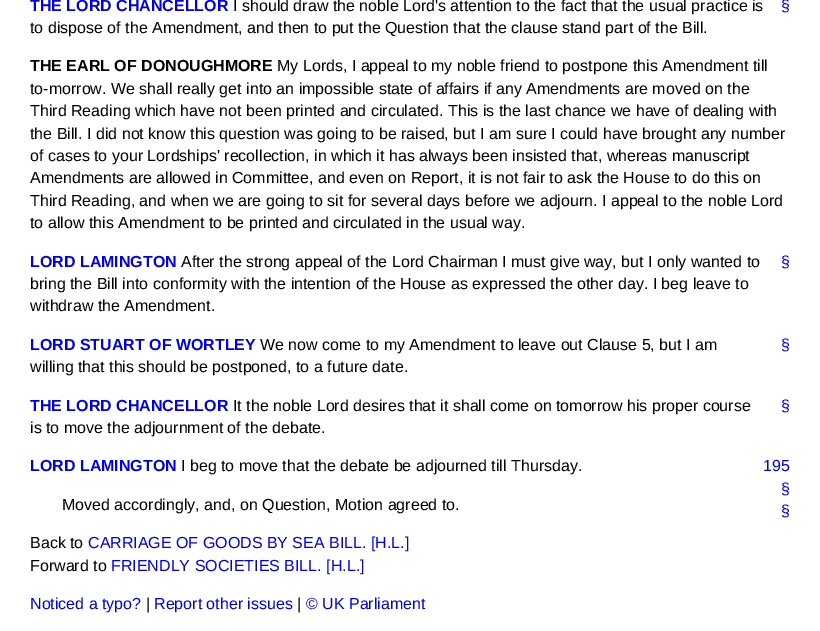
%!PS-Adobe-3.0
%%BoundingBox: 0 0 820 631
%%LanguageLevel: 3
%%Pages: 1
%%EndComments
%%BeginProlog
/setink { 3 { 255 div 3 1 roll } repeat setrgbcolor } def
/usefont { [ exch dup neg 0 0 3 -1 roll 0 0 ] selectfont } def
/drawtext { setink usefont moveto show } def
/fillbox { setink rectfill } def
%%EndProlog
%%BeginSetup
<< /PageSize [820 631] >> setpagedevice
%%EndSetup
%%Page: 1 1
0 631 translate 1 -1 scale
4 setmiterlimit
0 0 820 631 255 255 255 fillbox
(THE LORD CHANCELLOR) 30 11 /LiberationSans-Bold 16 0 0 238 drawtext
(I should draw the noble Lord's attention to the fact that the usual practice is) 233 11 /LiberationSans-Regular 16 0 0 0 drawtext
(§) 781 11 /LiberationSans-Regular 16 0 0 238 drawtext
(to dispose of the Amendment, and then to put the Question that the clause stand part of the Bill.) 30 33 /LiberationSans-Regular 16 0 0 0 drawtext
(THE EARL OF DONOUGHMORE) 30 71 /LiberationSans-Bold 16 0 0 0 drawtext
(My Lords, I appeal to my noble friend to postpone this Amendment till) 277 71 /LiberationSans-Regular 16 0 0 0 drawtext
(to-morrow. We shall really get into an impossible state of affairs if any Amendments are moved on the) 30 94 /LiberationSans-Regular 16 0 0 0 drawtext
(Third Reading which have not been printed and circulated. This is the last chance we have of dealing with) 30 116 /LiberationSans-Regular 16 0 0 0 drawtext
(the Bill. I did not know this question was going to be raised, but I am sure I could have brought any number) 30 139 /LiberationSans-Regular 16 0 0 0 drawtext
(of cases to your Lordships' recollection, in which it has always been insisted that, whereas manuscript) 30 161 /LiberationSans-Regular 16 0 0 0 drawtext
(Amendments are allowed in Committee, and even on Report, it is not fair to ask the House to do this on) 30 183 /LiberationSans-Regular 16 0 0 0 drawtext
(Third Reading, and when we are going to sit for several days before we adjourn. I appeal to the noble Lord) 30 206 /LiberationSans-Regular 16 0 0 0 drawtext
(to allow this Amendment to be printed and circulated in the usual way.) 30 228 /LiberationSans-Regular 16 0 0 0 drawtext
(LORD LAMINGTON) 30 267 /LiberationSans-Bold 16 0 0 238 drawtext
(After the strong appeal of the Lord Chairman I must give way, but I only wanted to) 181 267 /LiberationSans-Regular 16 0 0 0 drawtext
(§) 781 267 /LiberationSans-Regular 16 0 0 238 drawtext
(bring the Bill into conformity with the intention of the House as expressed the other day. I beg leave to) 30 289 /LiberationSans-Regular 16 0 0 0 drawtext
(withdraw the Amendment.) 30 311 /LiberationSans-Regular 16 0 0 0 drawtext
(LORD STUART OF WORTLEY) 30 350 /LiberationSans-Bold 16 0 0 238 drawtext
(We now come to my Amendment to leave out Clause 5, but I am) 260 350 /LiberationSans-Regular 16 0 0 0 drawtext
(§) 781 350 /LiberationSans-Regular 16 0 0 238 drawtext
(willing that this should be postponed, to a future date.) 30 372 /LiberationSans-Regular 16 0 0 0 drawtext
(THE LORD CHANCELLOR) 30 411 /LiberationSans-Bold 16 0 0 238 drawtext
(It the noble Lord desires that it shall come on tomorrow his proper course) 233 411 /LiberationSans-Regular 16 0 0 0 drawtext
(§) 781 411 /LiberationSans-Regular 16 0 0 238 drawtext
(is to move the adjournment of the debate.) 30 433 /LiberationSans-Regular 16 0 0 0 drawtext
(LORD LAMINGTON) 30 471 /LiberationSans-Bold 16 0 0 238 drawtext
(I beg to move that the debate be adjourned till Thursday.) 181 471 /LiberationSans-Regular 16 0 0 0 drawtext
(§) 781 494 /LiberationSans-Regular 16 0 0 238 drawtext
(195) 763 471 /LiberationSans-Regular 16 0 0 238 drawtext
(Moved accordingly, and, on Question, Motion agreed to.) 62 510 /LiberationSans-Regular 16 0 0 0 drawtext
(§) 781 516 /LiberationSans-Regular 16 0 0 238 drawtext
(Back to) 30 548 /LiberationSans-Regular 16 0 0 0 drawtext
(CARRIAGE OF GOODS BY SEA BILL. [H.L.]) 88 548 /LiberationSans-Regular 16 0 0 238 drawtext
(Forward to) 30 571 /LiberationSans-Regular 16 0 0 0 drawtext
(FRIENDLY SOCIETIES BILL. [H.L.]) 111 571 /LiberationSans-Regular 16 0 0 238 drawtext
(Noticed a typo?) 30 609 /LiberationSans-Regular 16 0 0 238 drawtext
(|) 146 609 /LiberationSans-Regular 16 0 0 0 drawtext
(Report other issues) 154 609 /LiberationSans-Regular 16 0 0 238 drawtext
(|) 297 609 /LiberationSans-Regular 16 0 0 0 drawtext
(© UK Parliament) 306 609 /LiberationSans-Regular 16 0 0 238 drawtext
showpage
%%EOF
